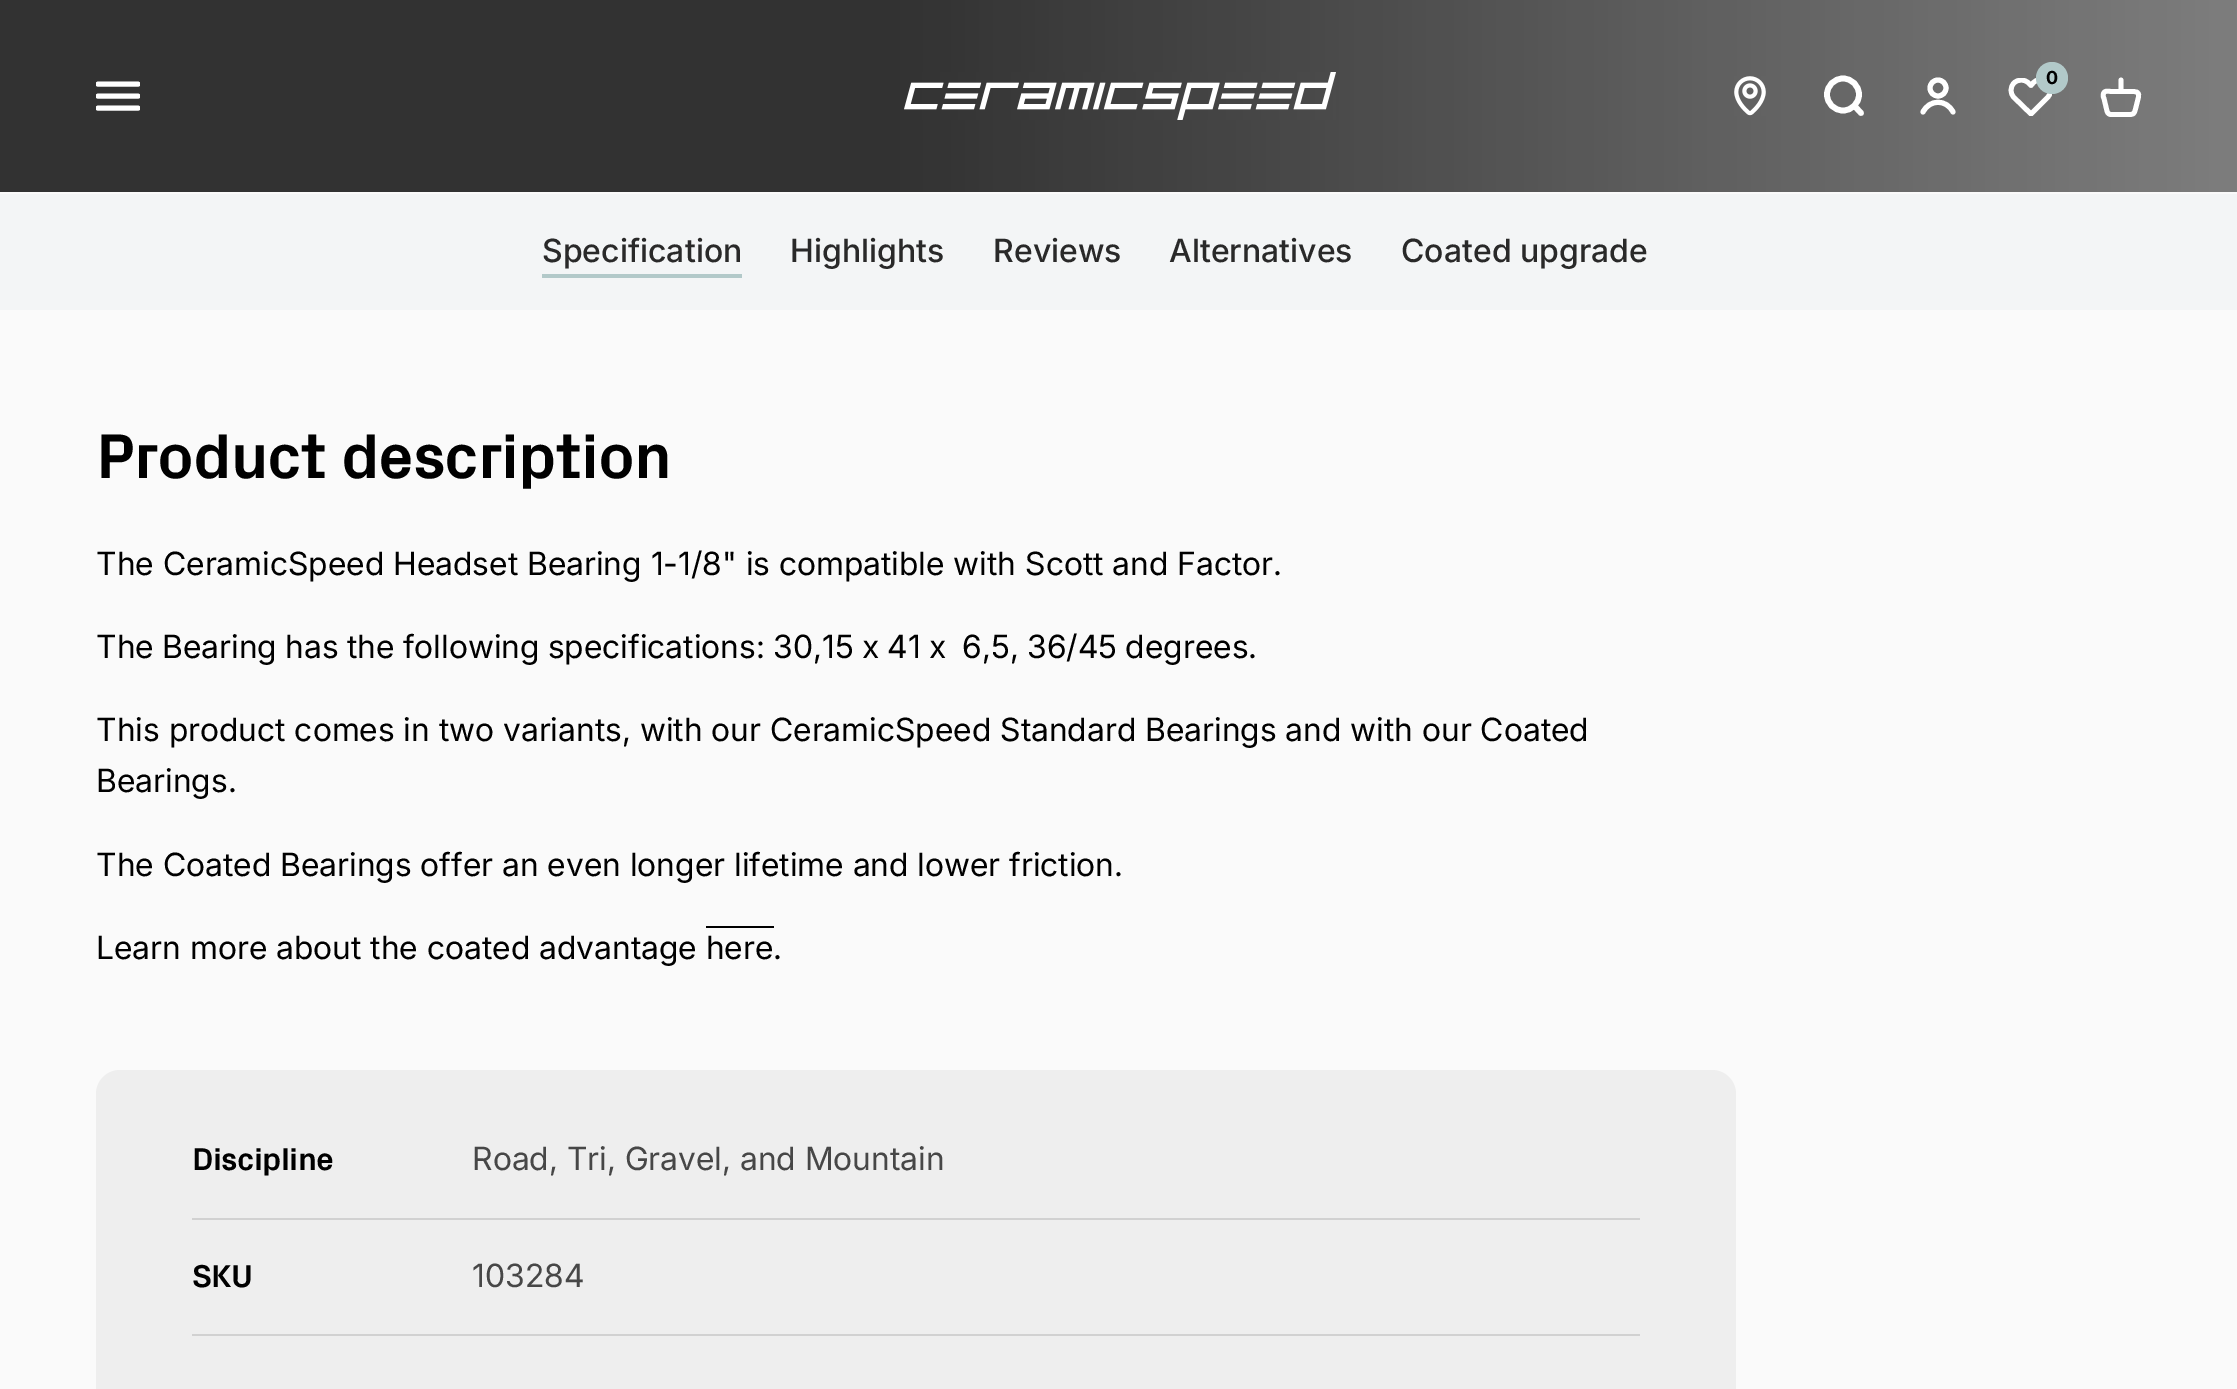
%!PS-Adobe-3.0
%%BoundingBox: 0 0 2237 1389
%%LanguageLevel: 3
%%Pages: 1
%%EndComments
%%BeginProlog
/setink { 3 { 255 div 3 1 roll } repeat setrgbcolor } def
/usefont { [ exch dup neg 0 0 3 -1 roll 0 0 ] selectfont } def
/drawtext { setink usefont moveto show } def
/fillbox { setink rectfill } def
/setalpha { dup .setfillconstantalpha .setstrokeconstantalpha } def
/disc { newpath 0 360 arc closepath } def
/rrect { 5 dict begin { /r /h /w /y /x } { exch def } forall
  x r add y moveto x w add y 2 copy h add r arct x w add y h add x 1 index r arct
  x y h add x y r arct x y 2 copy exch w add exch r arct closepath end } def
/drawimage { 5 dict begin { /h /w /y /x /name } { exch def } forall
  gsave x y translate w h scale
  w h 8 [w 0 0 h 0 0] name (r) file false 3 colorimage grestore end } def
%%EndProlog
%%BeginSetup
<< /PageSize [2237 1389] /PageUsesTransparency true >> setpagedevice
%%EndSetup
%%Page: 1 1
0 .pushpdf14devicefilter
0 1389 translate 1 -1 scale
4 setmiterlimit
0 0 2237 1389 250 250 250 fillbox
0.8 setalpha
gsave 0 0 moveto 2237 0 lineto 2237 192 lineto 0 192 lineto closepath clip newpath
<< /ShadingType 2 /ColorSpace /DeviceRGB /Coords [0 96 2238 96] /Extend [true true] /Function << /FunctionType 3 /Domain [0 1] /Functions [<< /FunctionType 2 /Domain [0 1] /C0 [0 0 0] /C1 [0 0 0] /N 1 >> << /FunctionType 2 /Domain [0 1] /C0 [0 0 0] /C1 [0.369 0.369 0.369] /N 1 >>] /Bounds [0.4] /Encode [0 1 0 1] >> >> shfill grestore
gsave
96 74 44 44 rectclip
1 setalpha
255 255 255 setink
5 setlinewidth
1 setlinecap
98 84 moveto 138 84 lineto 98 96 moveto 138 96 lineto 98 108 moveto 138 108 lineto stroke
grestore
1 setalpha
(assets/img1.rgb) 904 72 432 48 drawimage
(assets/img2.rgb) 1734 76 32 40 drawimage
255 255 255 setink
5.7 setlinewidth
1843 94.5 16 disc stroke
1 setlinecap
1 setlinejoin
1854.5 106 moveto 1861 113 lineto stroke
5 setlinewidth
0 setlinecap
0 setlinejoin
1938 88 8 disc stroke
1 setlinecap
1923 112 moveto 1929.5 99 1946.5 99 1953 112 curveto stroke
gsave
2008 78 44 38 rectclip
4.8 setlinewidth
1 setlinejoin
2047.5 97.5 moveto 2031 114 lineto 2014 97.5 lineto 2010 93.5 2010 87 2014 83 curveto 2018 79 2024.5 79 2028.5 83 curveto 2031 85.5 lineto 2032.5 83.5 2034 81.5 2036.5 80.5 curveto 2046.5 76.5 2055.5 89.5 2047.5 97.5 curveto closepath stroke
grestore
178 201 201 setink
2052 78 16 disc fill
(0) 2046 84 /Inter-Bold 18 0 0 0 drawtext
255 255 255 setink
4.8 setlinewidth
1 setlinejoin
2121 91.5 moveto 2111.5 91.5 lineto 2109.5 91.5 2106.5 90.5 2104.5 92 curveto 2102.5 94 2103 96.5 2104 98.5 curveto 2106.5 109 lineto 2107 111.5 2107.5 114 2110.5 114.5 curveto 2128 114.5 lineto 2133.5 114.5 2134 114.5 2135.5 109 curveto 2137.5 101 lineto 2139 95 2140.5 91.5 2133 91.5 curveto closepath 2121 91.5 moveto 2121 80 lineto stroke
0 194 2237 116 243 245 246 fillbox
(Specification) 542 262 /Inter-Medium 32 41 41 41 drawtext
542 274 200 4 178 201 201 fillbox
(Highlights) 790 262 /Inter-Medium 32 41 41 41 drawtext
(Reviews) 993 262 /Inter-Medium 32 41 41 41 drawtext
(Alternatives) 1169 262 /Inter-Medium 32 41 41 41 drawtext
(Coated upgrade) 1401 262 /Inter-Medium 32 41 41 41 drawtext
/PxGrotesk-Bold 64 usefont
0 0 0 setink
96 478 moveto -1.25 0 (Product description) ashow
(The CeramicSpeed Headset Bearing 1-1/8" is compatible with Scott and Factor.) 96 575 /Inter-Regular 32 0 0 0 drawtext
96 658 moveto -0.6 0 32 (The Bearing has the following specifications: 30,15 x 41 x) widthshow
962 658 moveto -0.6 0 32 (6,5, 36/45 degrees.) widthshow
(This product comes in two variants, with our CeramicSpeed Standard Bearings and with our Coated) 96 741 /Inter-Regular 32 0 0 0 drawtext
(Bearings.) 96 792 /Inter-Regular 32 0 0 0 drawtext
(The Coated Bearings offer an even longer lifetime and lower friction.) 96 876 /Inter-Regular 32 0 0 0 drawtext
706 926 68 2 0 0 0 fillbox
(Learn more about the coated advantage here.) 96 959 /Inter-Regular 32 0 0 0 drawtext
238 238 238 setink
96 1070 1640 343 24 rrect fill
/PxGrotesk-Bold 32 usefont
0 0 0 setink
192 1170 moveto -0.6 0 (Discipline) ashow
(Road, Tri, Gravel, and Mountain) 472 1170 /Inter-Regular 32 71 71 71 drawtext
192 1218 1448 2 209 209 209 fillbox
/PxGrotesk-Bold 32 usefont
0 0 0 setink
192 1287 moveto -0.6 0 (SKU) ashow
(103284) 472 1287 /Inter-Regular 32 71 71 71 drawtext
192 1334 1448 2 209 209 209 fillbox
.poppdf14devicefilter showpage
%%EOF
